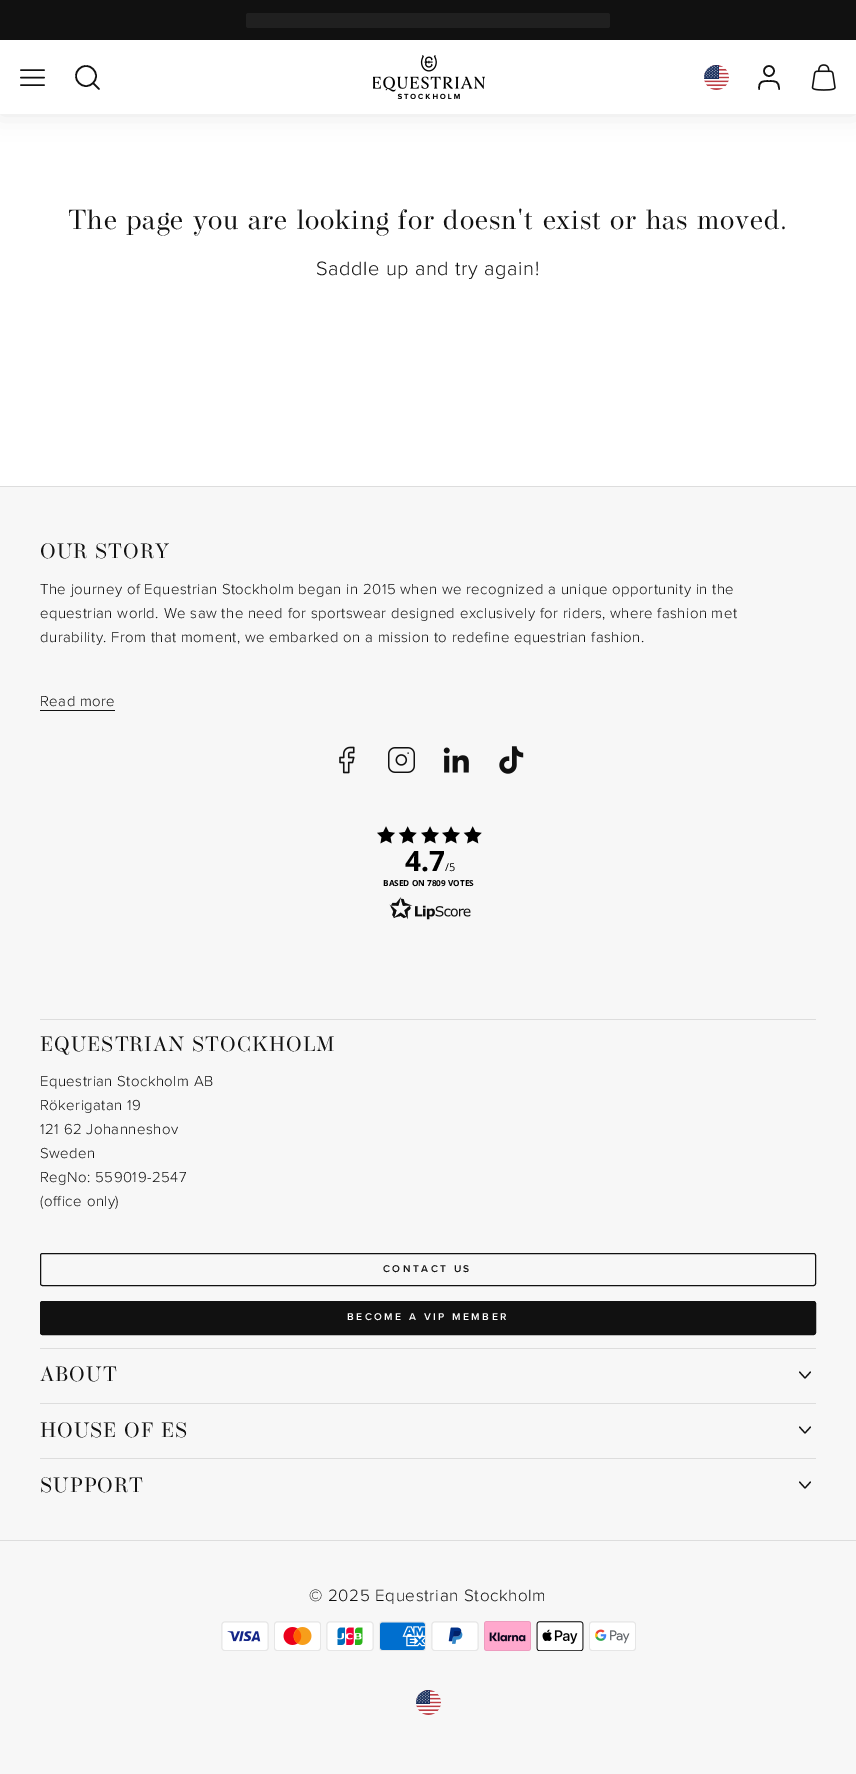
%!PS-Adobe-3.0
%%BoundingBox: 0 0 856 1774
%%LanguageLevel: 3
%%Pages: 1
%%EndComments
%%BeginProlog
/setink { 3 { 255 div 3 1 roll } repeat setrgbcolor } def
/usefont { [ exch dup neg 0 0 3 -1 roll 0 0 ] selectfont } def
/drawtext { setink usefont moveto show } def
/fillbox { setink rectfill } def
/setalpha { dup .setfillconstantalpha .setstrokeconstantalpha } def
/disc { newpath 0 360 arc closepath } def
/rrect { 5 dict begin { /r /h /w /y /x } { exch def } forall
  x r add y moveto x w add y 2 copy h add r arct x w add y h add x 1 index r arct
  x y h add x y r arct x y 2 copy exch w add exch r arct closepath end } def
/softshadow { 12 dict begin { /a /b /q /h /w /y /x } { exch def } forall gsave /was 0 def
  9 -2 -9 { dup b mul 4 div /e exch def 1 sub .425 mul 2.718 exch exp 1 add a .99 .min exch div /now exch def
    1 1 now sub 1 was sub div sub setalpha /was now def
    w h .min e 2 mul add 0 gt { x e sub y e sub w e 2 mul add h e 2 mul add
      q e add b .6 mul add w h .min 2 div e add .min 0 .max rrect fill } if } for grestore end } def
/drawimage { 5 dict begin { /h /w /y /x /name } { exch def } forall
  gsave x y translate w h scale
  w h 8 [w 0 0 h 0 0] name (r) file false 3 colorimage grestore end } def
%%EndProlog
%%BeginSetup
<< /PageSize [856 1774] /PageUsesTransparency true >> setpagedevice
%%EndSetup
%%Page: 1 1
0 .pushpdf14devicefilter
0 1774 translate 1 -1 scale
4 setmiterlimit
0 0 856 1774 255 255 255 fillbox
0 0 856 40 17 17 17 fillbox
32 32 32 setink
246 13 364 15 2.5 rrect fill
0 0 0 setink
0 40 856 74 0 12.5 0.1 softshadow
0 40 856 74 255 255 255 fillbox
17 17 17 setink
1.6 setlinewidth
1 setlinecap
1 setlinejoin
21 77.5 moveto 44 77.5 lineto 21 70 moveto 44 70 lineto 21 85 moveto 44 85 lineto stroke
0 setlinecap
0 setlinejoin
86 76 10 disc stroke
1 setlinecap
1 setlinejoin
99 89 moveto 93.5 83.5 lineto stroke
(assets/img1.rgb) 373 55 112 44 drawimage
(assets/img2.rgb) 704 65 25 25 drawimage
779 89 moveto 779 81 775.5 81 769 81 curveto 762 81 759 81 759 89 curveto stroke
0 setlinecap
0 setlinejoin
769 71 5 disc stroke
(assets/img3.rgb) 811 64 25 27 drawimage
/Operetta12-Regular 27.5 usefont
68 229 moveto 0.83 0 (The page you are looking for doesn't exist or has moved.) ashow
/ProximaNova-Light 20 usefont
316 275 moveto 0.6 0 (Saddle up and try again!) ashow
0 487 856 1287 247 247 247 fillbox
0 486 856 1 221 221 221 fillbox
/Operetta12-Regular 20.6 usefont
17 17 17 setink
40 558 moveto 1 0 (OUR STORY) ashow
/ProximaNova-Light 15 usefont
40 594 moveto 0.45 0 (The journey of Equestrian Stockholm began in 2015 when we recognized a unique opportunity in the) ashow
40 618 moveto 0.45 0 (equestrian world. We saw the need for sportswear designed exclusively for riders, where fashion met) ashow
40 642 moveto 0.45 0 (durability. From that moment, we embarked on a mission to redefine equestrian fashion.) ashow
40 706 moveto 0.45 0 (Read more) ashow
40 710 75 1 17 17 17 fillbox
(assets/img4.rgb) 339 746 16 28 drawimage
(assets/img5.rgb) 388 747 27 26 drawimage
(assets/img6.rgb) 443 747 26 26 drawimage
(assets/img7.rgb) 499 746 25 28 drawimage
(assets/img8.rgb) 377 826 105 94 drawimage
(4.7) 405 871 /OpenSans-Bold 28 0 0 0 drawtext
(/5) 445 871 /OpenSans-Regular 11 0 0 0 drawtext
(BASED ON 7809 VOTES) 383 886 /OpenSans-Bold 8.25 0 0 0 drawtext
40 1019 776 1 221 221 221 fillbox
/Operetta12-Regular 20.6 usefont
17 17 17 setink
40 1051 moveto 1 0 (EQUESTRIAN STOCKHOLM) ashow
/ProximaNova-Light 15 usefont
40 1086 moveto 0.45 0 (Equestrian Stockholm AB) ashow
40 1110 moveto 0.45 0 (Rökerigatan 19) ashow
40 1134 moveto 0.45 0 (121 62 Johanneshov) ashow
40 1158 moveto 0.45 0 (Sweden) ashow
40 1182 moveto 0.45 0 (RegNo: 559019-2547) ashow
40 1206 moveto 0.45 0 (\(office only\)) ashow
1 setlinewidth
40.5 1253.5 775 32 2 rrect stroke
/ProximaNova-SemiBold 10.25 usefont
383 1272 moveto 2.5 0 (CONTACT US) ashow
40.5 1301.5 775 33 2 rrect gsave fill grestore
stroke
255 255 255 setink
347 1320 moveto 2.5 0 (BECOME A VIP MEMBER) ashow
40 1348 776 1 221 221 221 fillbox
/Operetta12-Regular 20.6 usefont
17 17 17 setink
40 1381 moveto 1 0 (ABOUT) ashow
40 1403 776 1 221 221 221 fillbox
17 17 17 setink
1.2 setlinewidth
1 setlinecap
1 setlinejoin
799.5 1372 moveto 805 1378 lineto 810.5 1372 lineto 799.5 1427 moveto 805 1433 lineto 810.5 1427 lineto stroke
40 1437 moveto 1 0 (HOUSE OF ES) ashow
40 1458 776 1 221 221 221 fillbox
17 17 17 setink
40 1492 moveto 1 0 (SUPPORT) ashow
799.5 1482 moveto 805 1488 lineto 810.5 1482 lineto stroke
0 1540 856 1 221 221 221 fillbox
/ProximaNova-Light 17 usefont
17 17 17 setink
309 1601 moveto 0.6 0 (© 2025 Equestrian Stockholm) ashow
(assets/img9.rgb) 221 1621 48 30 drawimage
(assets/img10.rgb) 274 1621 47 30 drawimage
(assets/img11.rgb) 326 1621 48 30 drawimage
(assets/img12.rgb) 379 1621 47 30 drawimage
(assets/img13.rgb) 431 1621 48 30 drawimage
(assets/img14.rgb) 484 1621 47 30 drawimage
(assets/img15.rgb) 536 1621 48 30 drawimage
(assets/img16.rgb) 589 1621 47 30 drawimage
(assets/img17.rgb) 416 1690 25 25 drawimage
.poppdf14devicefilter showpage
%%EOF
